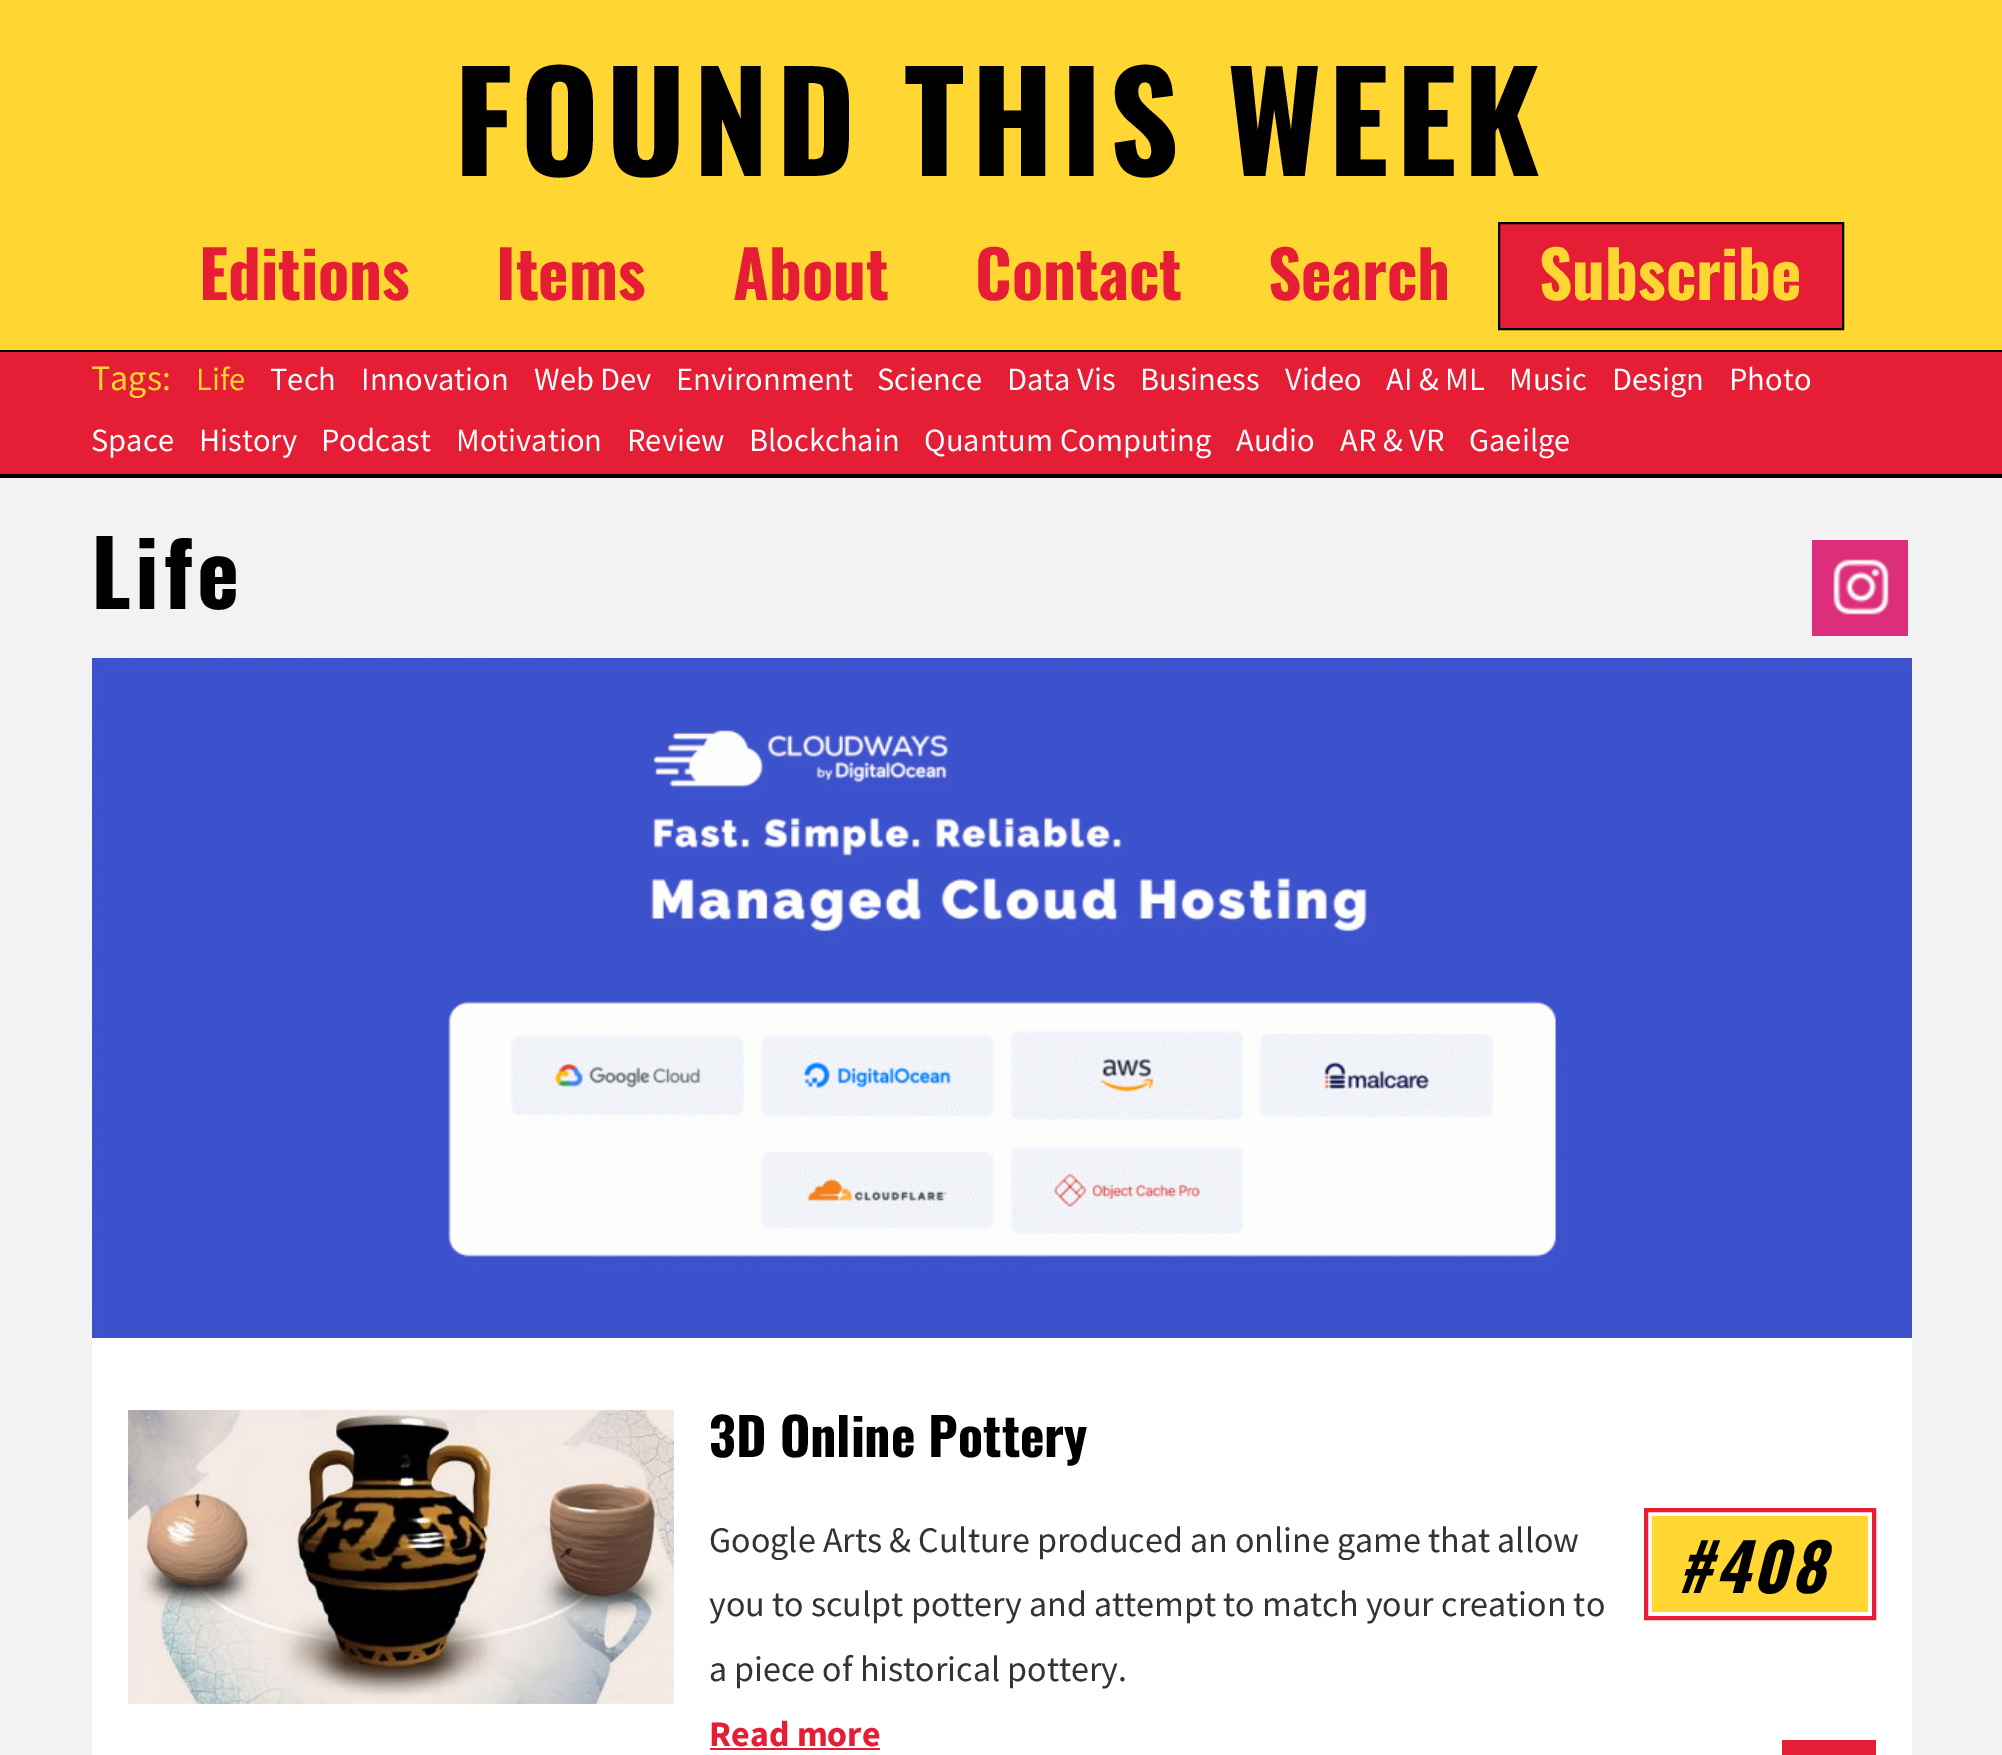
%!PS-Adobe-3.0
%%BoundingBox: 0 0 2002 1755
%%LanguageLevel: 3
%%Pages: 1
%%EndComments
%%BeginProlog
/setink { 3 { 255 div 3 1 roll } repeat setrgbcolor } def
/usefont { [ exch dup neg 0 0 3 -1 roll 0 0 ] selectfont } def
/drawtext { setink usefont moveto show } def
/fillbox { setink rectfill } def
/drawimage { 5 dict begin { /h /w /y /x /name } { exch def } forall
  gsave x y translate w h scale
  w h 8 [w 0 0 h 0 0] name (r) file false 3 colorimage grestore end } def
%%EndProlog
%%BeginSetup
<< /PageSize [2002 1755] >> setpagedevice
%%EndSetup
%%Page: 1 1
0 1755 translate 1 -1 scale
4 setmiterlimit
0 0 2002 1755 255 214 50 fillbox
0 474 2002 4 0 0 0 fillbox
/Oswald-Bold 136 usefont
454 176 moveto 6.75 0 (FOUND THIS WEEK) ashow
(Editions) 199 300 /Oswald-Bold 65 229 29 53 drawtext
(Items) 496 300 /Oswald-Bold 65 229 29 53 drawtext
(About) 733 300 /Oswald-Bold 65 229 29 53 drawtext
(Contact) 975 300 /Oswald-Bold 65 229 29 53 drawtext
(Search) 1268 300 /Oswald-Bold 65 229 29 53 drawtext
1499 223 moveto 1843 223 lineto 1843 329 lineto 1499 329 lineto closepath gsave fill grestore
0 0 0 setink
2 setlinewidth
stroke
(Subscribe) 1539 300 /Oswald-Bold 65 255 214 50 drawtext
0 352 2002 122 229 29 53 fillbox
0 350 2002 2 0 0 0 fillbox
(Tags:) 91 390 /SourceSansPro-Regular 36 255 214 50 drawtext
(Life) 196 390 /SourceSansPro-Regular 32.5 255 214 50 drawtext
(Tech) 270 390 /SourceSansPro-Regular 32.5 255 255 255 drawtext
(Innovation) 361 390 /SourceSansPro-Regular 32.5 255 255 255 drawtext
(Web Dev) 534 390 /SourceSansPro-Regular 32.5 255 255 255 drawtext
(Environment) 676 390 /SourceSansPro-Regular 32.5 255 255 255 drawtext
(Science) 877 390 /SourceSansPro-Regular 32.5 255 255 255 drawtext
(Data Vis) 1007 390 /SourceSansPro-Regular 32.5 255 255 255 drawtext
(Business) 1140 390 /SourceSansPro-Regular 32.5 255 255 255 drawtext
(Video) 1285 390 /SourceSansPro-Regular 32.5 255 255 255 drawtext
(AI & ML) 1386 390 /SourceSansPro-Regular 32.5 255 255 255 drawtext
(Music) 1509 390 /SourceSansPro-Regular 32.5 255 255 255 drawtext
(Design) 1612 390 /SourceSansPro-Regular 32.5 255 255 255 drawtext
(Photo) 1729 390 /SourceSansPro-Regular 32.5 255 255 255 drawtext
(Space) 91 451 /SourceSansPro-Regular 32.5 255 255 255 drawtext
(History) 199 451 /SourceSansPro-Regular 32.5 255 255 255 drawtext
(Podcast) 321 451 /SourceSansPro-Regular 32.5 255 255 255 drawtext
(Motivation) 456 451 /SourceSansPro-Regular 32.5 255 255 255 drawtext
(Review) 627 451 /SourceSansPro-Regular 32.5 255 255 255 drawtext
(Blockchain) 749 451 /SourceSansPro-Regular 32.5 255 255 255 drawtext
(Quantum Computing) 924 451 /SourceSansPro-Regular 32.5 255 255 255 drawtext
(Audio) 1236 451 /SourceSansPro-Regular 32.5 255 255 255 drawtext
(AR & VR) 1340 451 /SourceSansPro-Regular 32.5 255 255 255 drawtext
(Gaeilge) 1469 451 /SourceSansPro-Regular 32.5 255 255 255 drawtext
0 478 2002 1277 242 242 242 fillbox
/Oswald-Bold 90 usefont
0 0 0 setink
91 609 moveto 4.5 0 (Life) ashow
92 1338 1820 417 255 255 255 fillbox
(assets/img1.rgb) 1812 540 96 96 drawimage
(assets/img2.rgb) 92 658 1820 680 drawimage
(assets/img3.rgb) 128 1410 546 294 drawimage
(3D Online Pottery) 709 1457 /Oswald-Bold 52 0 0 0 drawtext
(Google Arts & Culture produced an online game that allow) 709 1552 /SourceSansPro-Regular 36 51 51 51 drawtext
(you to sculpt pottery and attempt to match your creation to) 709 1616 /SourceSansPro-Regular 36 51 51 51 drawtext
(a piece of historical pottery.) 709 1681 /SourceSansPro-Regular 36 51 51 51 drawtext
1652 1516 216 96 255 214 50 fillbox
229 29 53 setink
4 setlinewidth
1646 1510 228 108 rectstroke
/Oswald-BoldItalic 65 usefont
0 0 0 setink
1677 1593 moveto 3 0 (#408) ashow
(Read more) 709 1746 /SourceSansPro-Bold 36 229 29 53 drawtext
710 1748 170 2 229 29 53 fillbox
1782 1740 94 15 229 29 53 fillbox
showpage
%%EOF
